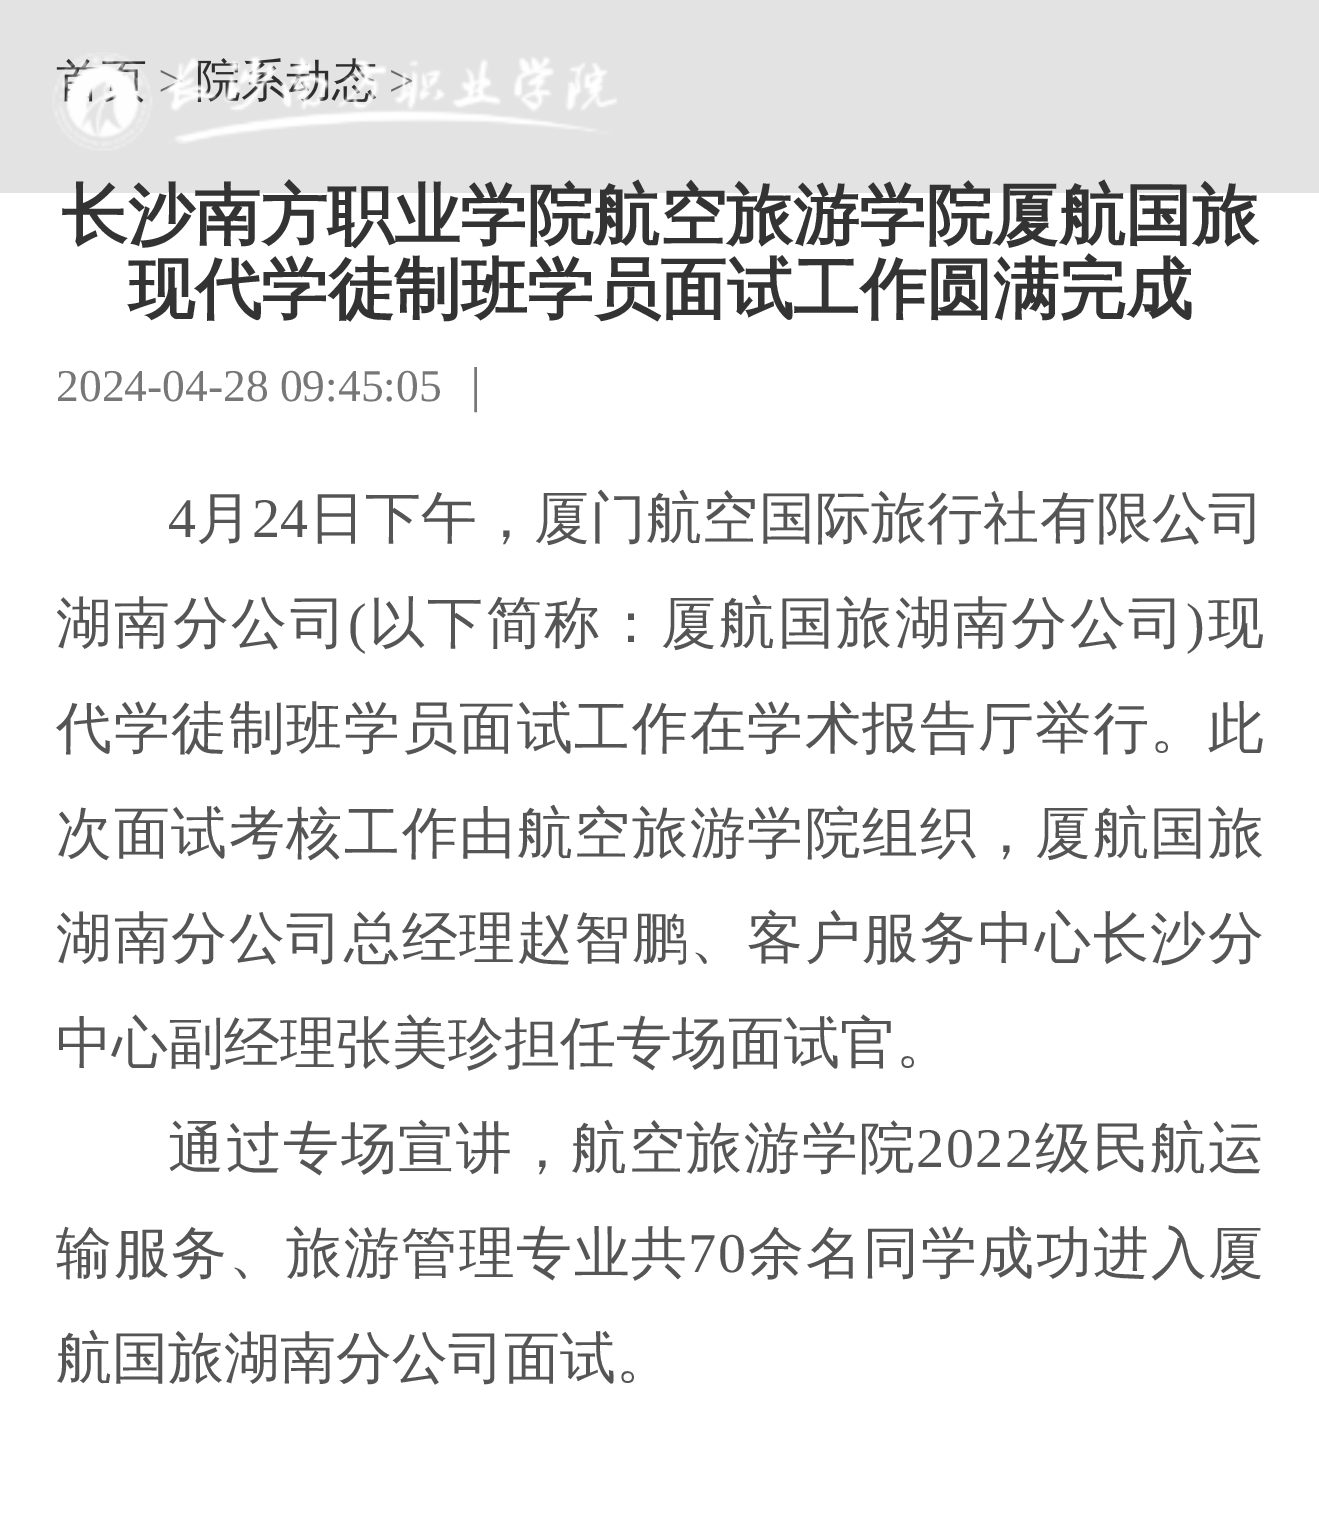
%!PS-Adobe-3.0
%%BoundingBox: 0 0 1319 1524
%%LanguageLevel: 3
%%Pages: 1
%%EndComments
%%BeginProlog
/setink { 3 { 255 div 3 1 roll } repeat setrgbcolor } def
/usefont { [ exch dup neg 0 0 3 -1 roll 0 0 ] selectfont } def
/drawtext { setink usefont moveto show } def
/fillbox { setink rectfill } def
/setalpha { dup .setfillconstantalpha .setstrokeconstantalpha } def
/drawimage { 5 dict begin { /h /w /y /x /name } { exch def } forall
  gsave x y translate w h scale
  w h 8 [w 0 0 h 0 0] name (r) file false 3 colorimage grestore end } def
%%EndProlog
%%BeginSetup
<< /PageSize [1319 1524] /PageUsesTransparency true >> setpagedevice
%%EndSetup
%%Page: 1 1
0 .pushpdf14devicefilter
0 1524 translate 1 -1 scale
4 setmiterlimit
0 0 1319 1524 255 255 255 fillbox
0.11 setalpha
0 0 1319 193 0 0 0 fillbox
1 setalpha
(>) 158 96 /LiberationSerif-Regular 45.5 119 119 119 drawtext
(院系动态) 195 96 /WenQuanYiZenHei-Medium 45.5 51 51 51 drawtext
(>) 389 96 /LiberationSerif-Regular 45.5 119 119 119 drawtext
(assets/img1.rgb) 52 52 566 99 drawimage
(长沙南方职业学院航空旅游学院厦航国旅) 61 238 /WenQuanYiZenHei-Bold 66.5 51 51 51 drawtext
(现代学徒制班学员面试工作圆满完成) 128 312 /WenQuanYiZenHei-Bold 66.5 51 51 51 drawtext
(2024-04-28 09:45:05) 56 401 /LiberationSerif-Regular 45.5 119 119 119 drawtext
(｜) 453 401 /WenQuanYiZenHei-Medium 45.5 119 119 119 drawtext
/LiberationSerif-Regular 56 usefont
85 85 85 setink
168 537 moveto 0.2 0 (4) ashow
/WenQuanYiZenHei-Medium 56 usefont
196 537 moveto 0.2 0 (月) ashow
/LiberationSerif-Regular 56 usefont
252 537 moveto 0.2 0 (24) ashow
/WenQuanYiZenHei-Medium 56 usefont
309 537 moveto 0.2 0 (日下午，厦门航空国际旅行社有限公司) ashow
56 642 moveto 2.4 0 (湖南分公司) ashow
/LiberationSerif-Regular 56 usefont
348 642 moveto 2.4 0 (\() ashow
/WenQuanYiZenHei-Medium 56 usefont
369 642 moveto 2.4 0 (以下简称：厦航国旅湖南分公司) ashow
/LiberationSerif-Regular 56 usefont
1186 642 moveto 2.4 0 (\)) ashow
/WenQuanYiZenHei-Medium 56 usefont
1208 642 moveto 2.4 0 (现) ashow
56 747 moveto 1.6 0 (代学徒制班学员面试工作在学术报告厅举行。此) ashow
56 852 moveto 1.6 0 (次面试考核工作由航空旅游学院组织，厦航国旅) ashow
56 957 moveto 1.6 0 (湖南分公司总经理赵智鹏、客户服务中心长沙分) ashow
(中心副经理张美珍担任专场面试官。) 56 1062 /WenQuanYiZenHei-Medium 56 85 85 85 drawtext
168 1167 moveto 1.6 0 (通过专场宣讲，航空旅游学院) ashow
/LiberationSerif-Regular 56 usefont
916 1167 moveto 1.6 0 (2022) ashow
/WenQuanYiZenHei-Medium 56 usefont
1035 1167 moveto 1.6 0 (级民航运) ashow
56 1272 moveto 1.5 0 (输服务、旅游管理专业共) ashow
/LiberationSerif-Regular 56 usefont
688 1272 moveto 1.5 0 (70) ashow
/WenQuanYiZenHei-Medium 56 usefont
748 1272 moveto 1.5 0 (余名同学成功进入厦) ashow
(航国旅湖南分公司面试。) 56 1377 /WenQuanYiZenHei-Medium 56 85 85 85 drawtext
.poppdf14devicefilter showpage
%%EOF
